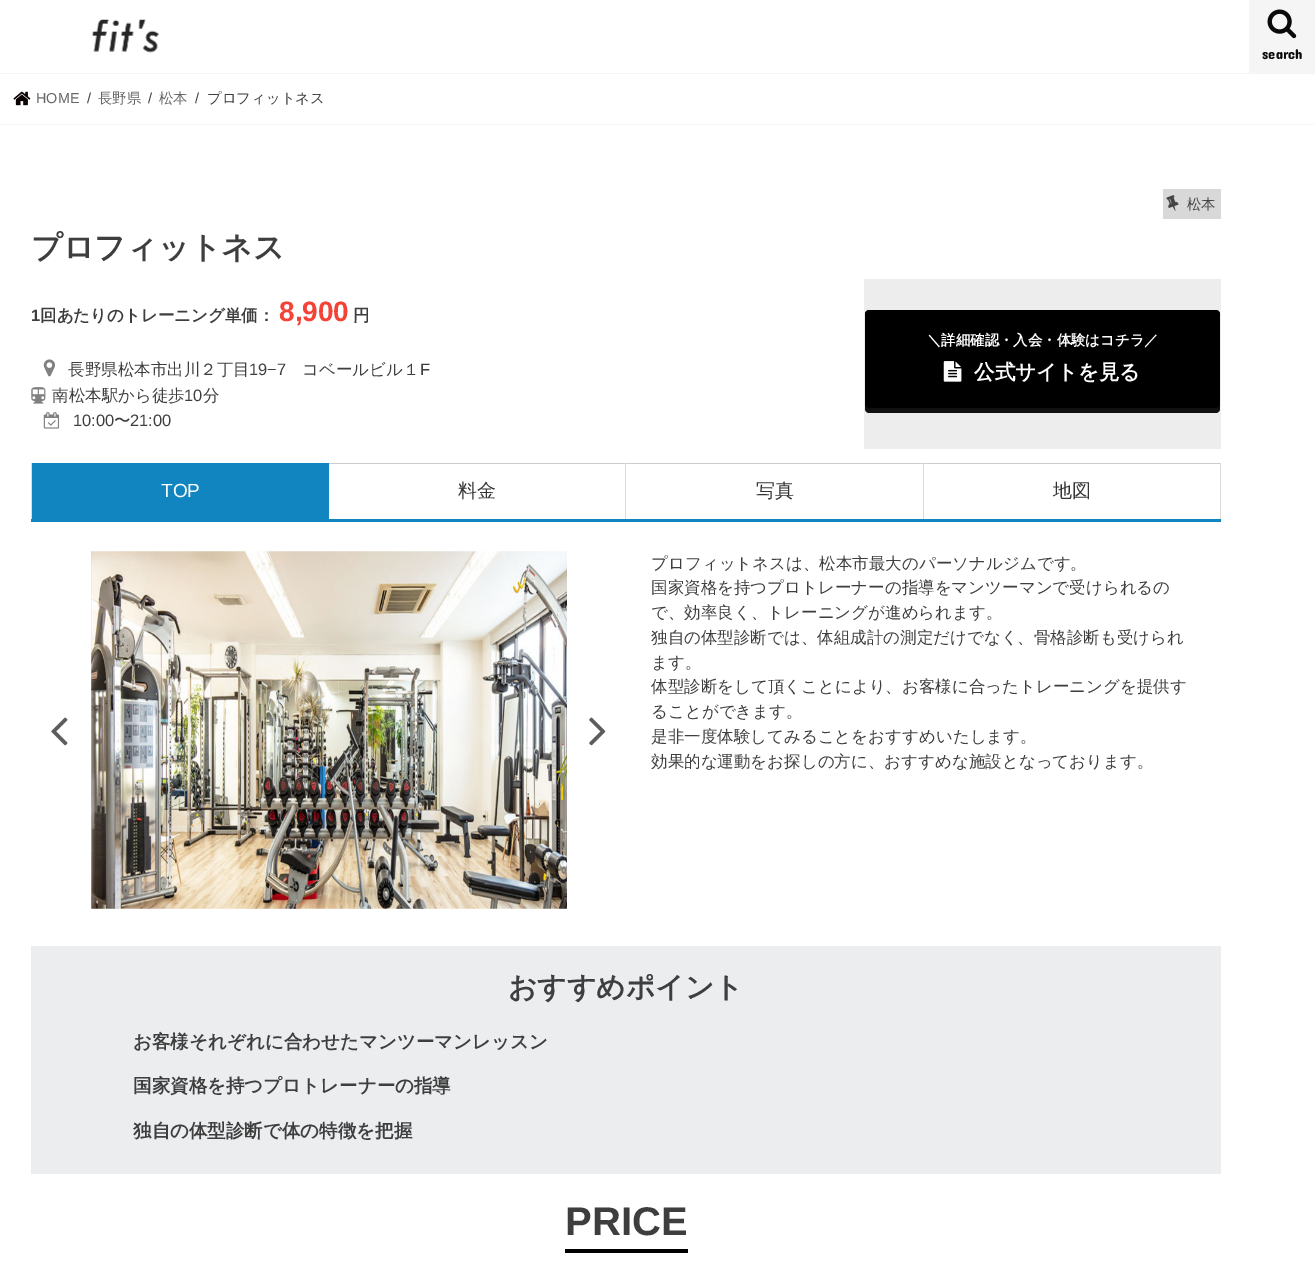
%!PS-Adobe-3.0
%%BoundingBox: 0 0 1315 1262
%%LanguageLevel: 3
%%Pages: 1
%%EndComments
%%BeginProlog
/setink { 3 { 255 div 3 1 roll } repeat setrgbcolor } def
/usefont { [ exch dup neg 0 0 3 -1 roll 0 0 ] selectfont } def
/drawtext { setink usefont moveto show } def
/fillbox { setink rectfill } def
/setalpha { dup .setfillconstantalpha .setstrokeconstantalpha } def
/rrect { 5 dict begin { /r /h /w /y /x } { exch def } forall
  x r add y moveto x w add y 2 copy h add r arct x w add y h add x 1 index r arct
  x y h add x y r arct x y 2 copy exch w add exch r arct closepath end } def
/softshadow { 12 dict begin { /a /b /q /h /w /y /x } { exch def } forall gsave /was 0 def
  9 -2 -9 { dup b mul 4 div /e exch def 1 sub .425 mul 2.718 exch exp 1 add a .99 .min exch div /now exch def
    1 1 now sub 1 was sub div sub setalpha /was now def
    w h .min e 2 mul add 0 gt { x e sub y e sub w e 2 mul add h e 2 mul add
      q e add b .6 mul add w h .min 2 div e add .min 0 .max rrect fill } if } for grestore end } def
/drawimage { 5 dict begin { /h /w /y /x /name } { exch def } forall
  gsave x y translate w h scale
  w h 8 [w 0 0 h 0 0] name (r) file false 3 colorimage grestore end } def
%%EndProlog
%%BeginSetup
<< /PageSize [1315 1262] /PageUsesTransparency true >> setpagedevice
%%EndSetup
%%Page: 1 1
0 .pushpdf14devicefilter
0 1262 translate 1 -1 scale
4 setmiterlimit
0 0 1315 1262 255 255 255 fillbox
221 221 221 setink
0 74 1315 50 0 0.5 1 softshadow
0 73 1315 1 242 244 249 fillbox
(assets/img1.rgb) 92 19 68 34 drawimage
1249 0 66 73 245 245 245 fillbox
(assets/img2.rgb) 1267 9 30 30 drawimage
(search) 1262 59 /ConcertOne-Regular 14.4 10 10 10 drawtext
0 74 1315 50 255 255 255 fillbox
(assets/img3.rgb) 13 91 18 15 drawimage
(HOME) 36 103 /LiberationSans-Regular 14.4 102 102 102 drawtext
(/) 87 103 /LiberationSans-Regular 14.4 62 62 62 drawtext
(長野県) 98 103 /WenQuanYiZenHei-Medium 14.4 102 102 102 drawtext
(/) 148 103 /LiberationSans-Regular 14.4 62 62 62 drawtext
(松本) 159 103 /WenQuanYiZenHei-Medium 14.4 102 102 102 drawtext
(/) 195 103 /LiberationSans-Regular 14.4 62 62 62 drawtext
(プロフィットネス) 207 103 /WenQuanYiZenHei-Medium 14.4 62 62 62 drawtext
1163 189 58 30 216 216 216 fillbox
(assets/img4.rgb) 1166 195 13 16 drawimage
(松本) 1187 209 /WenQuanYiZenHei-Medium 14.4 68 68 68 drawtext
(プロフィットネス) 31 258 /WenQuanYiZenHei-Bold 31 62 62 62 drawtext
(1) 31 321 /LiberationSans-Bold 16.5 62 62 62 drawtext
(回あたりのトレーニング単価：) 40 321 /WenQuanYiZenHei-Bold 16.5 62 62 62 drawtext
(8,900) 279 321 /LiberationSans-Bold 28 244 67 54 drawtext
(円) 353 321 /WenQuanYiZenHei-Bold 16.5 62 62 62 drawtext
(assets/img5.rgb) 43 359 12 18 drawimage
(長野県松本市出川２丁目) 68 375 /WenQuanYiZenHei-Medium 16.5 62 62 62 drawtext
(19−7) 249 375 /LiberationSans-Regular 16.5 62 62 62 drawtext
(コベールビル１) 302 375 /WenQuanYiZenHei-Medium 16.5 62 62 62 drawtext
(F) 420 375 /LiberationSans-Regular 16.5 62 62 62 drawtext
(assets/img6.rgb) 31 387 15 17 drawimage
(南松本駅から徒歩) 52 401 /WenQuanYiZenHei-Medium 16.5 62 62 62 drawtext
(10) 184 401 /LiberationSans-Regular 16.5 62 62 62 drawtext
(分) 203 401 /WenQuanYiZenHei-Medium 16.5 62 62 62 drawtext
(assets/img7.rgb) 43 412 17 17 drawimage
(10:00) 73 426 /LiberationSans-Regular 16.5 62 62 62 drawtext
(〜) 114 426 /WenQuanYiZenHei-Medium 16.5 62 62 62 drawtext
(21:00) 130 426 /LiberationSans-Regular 16.5 62 62 62 drawtext
864 279 357 170 237 237 237 fillbox
16 16 16 setink
865 403 moveto 865 409 lineto 865 411 867 413 869 413 curveto 1216 413 lineto 1218 413 1220 411 1220 409 curveto 1220 403 lineto 1220 406 1218 408 1216 408 curveto 869 408 lineto 867 408 865 406 865 403 curveto closepath fill
0 0 0 setink
865 310 355 98 4 rrect fill
(＼詳細確認・入会・体験はコチラ／) 927 345 /WenQuanYiZenHei-Bold 14.4 255 255 255 drawtext
(assets/img8.rgb) 943 361 19 21 drawimage
(公式サイトを見る) 974 379 /WenQuanYiZenHei-Bold 20.5 255 255 255 drawtext
31 519 1190 3 17 133 191 fillbox
32 463 297 56 17 133 191 fillbox
31 463 1 56 219 219 219 fillbox
(TOP) 161 497 /LiberationSans-Regular 19 255 255 255 drawtext
329 463 892 1 204 204 204 fillbox
625 463 1 56 219 219 219 fillbox
(料金) 458 497 /WenQuanYiZenHei-Medium 19 51 51 51 drawtext
923 463 1 56 219 219 219 fillbox
(写真) 756 497 /WenQuanYiZenHei-Medium 19 51 51 51 drawtext
1220 463 1 56 219 219 219 fillbox
(地図) 1053 497 /WenQuanYiZenHei-Medium 19 51 51 51 drawtext
(assets/img9.rgb) 51 717 17 29 drawimage
(assets/img10.rgb) 91 551 1 358 drawimage
(assets/img11.rgb) 91 551 476 358 drawimage
(assets/img12.rgb) 589 717 17 29 drawimage
(プロフィットネスは、松本市最大のパーソナルジムです。) 651 569 /WenQuanYiZenHei-Medium 16.5 62 62 62 drawtext
(国家資格を持つプロトレーナーの指導をマンツーマンで受けられるの) 651 593 /WenQuanYiZenHei-Medium 16.5 62 62 62 drawtext
(で、効率良く、トレーニングが進められます。) 651 618 /WenQuanYiZenHei-Medium 16.5 62 62 62 drawtext
(独自の体型診断では、体組成計の測定だけでなく、骨格診断も受けられ) 651 643 /WenQuanYiZenHei-Medium 16.5 62 62 62 drawtext
(ます。) 651 668 /WenQuanYiZenHei-Medium 16.5 62 62 62 drawtext
(体型診断をして頂くことにより、お客様に合ったトレーニングを提供す) 651 692 /WenQuanYiZenHei-Medium 16.5 62 62 62 drawtext
(ることができます。) 651 717 /WenQuanYiZenHei-Medium 16.5 62 62 62 drawtext
(是非一度体験してみることをおすすめいたします。) 651 742 /WenQuanYiZenHei-Medium 16.5 62 62 62 drawtext
(効果的な運動をお探しの方に、おすすめな施設となっております。) 651 767 /WenQuanYiZenHei-Medium 16.5 62 62 62 drawtext
31 946 1190 228 235 237 239 fillbox
(おすすめポイント) 508 997 /WenQuanYiZenHei-Bold 28.75 62 62 62 drawtext
(お客様それぞれに合わせたマンツーマンレッスン) 133 1048 /WenQuanYiZenHei-Bold 18.5 62 62 62 drawtext
(国家資格を持つプロトレーナーの指導) 133 1092 /WenQuanYiZenHei-Bold 18.5 62 62 62 drawtext
(独自の体型診断で体の特徴を把握) 133 1137 /WenQuanYiZenHei-Bold 18.5 62 62 62 drawtext
565 1249 123 4 0 0 0 fillbox
(PRICE) 565 1235 /LiberationSans-Bold 40 62 62 62 drawtext
.poppdf14devicefilter showpage
%%EOF
